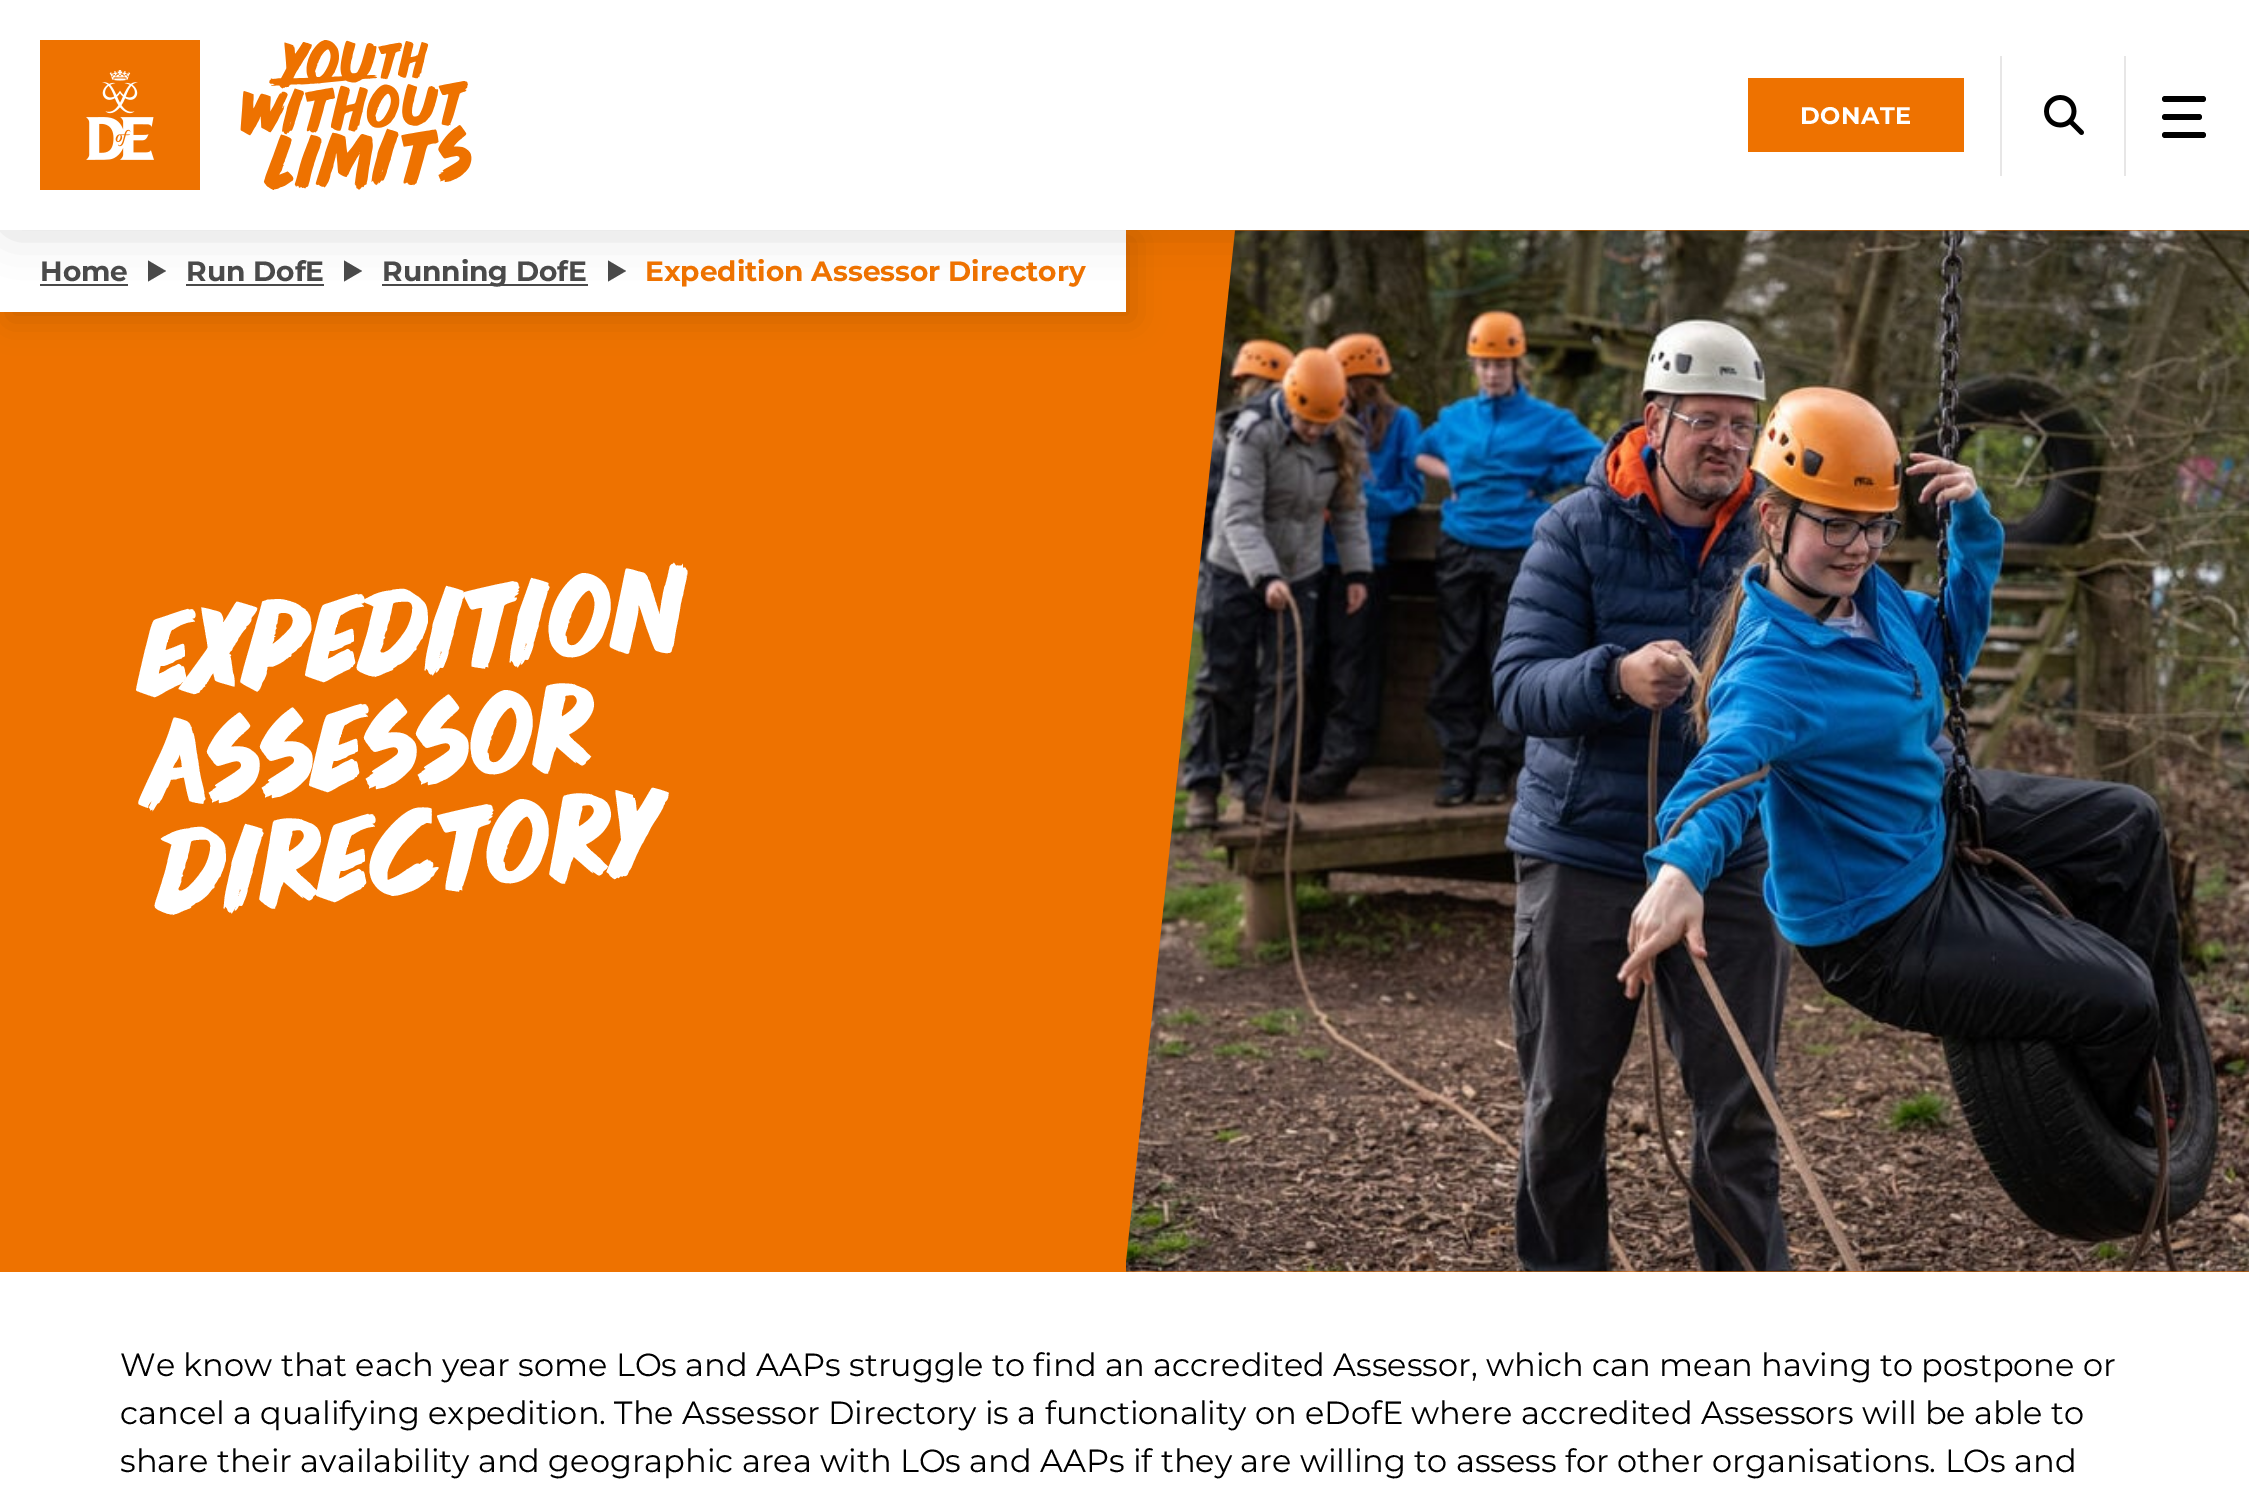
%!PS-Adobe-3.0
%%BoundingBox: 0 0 2249 1509
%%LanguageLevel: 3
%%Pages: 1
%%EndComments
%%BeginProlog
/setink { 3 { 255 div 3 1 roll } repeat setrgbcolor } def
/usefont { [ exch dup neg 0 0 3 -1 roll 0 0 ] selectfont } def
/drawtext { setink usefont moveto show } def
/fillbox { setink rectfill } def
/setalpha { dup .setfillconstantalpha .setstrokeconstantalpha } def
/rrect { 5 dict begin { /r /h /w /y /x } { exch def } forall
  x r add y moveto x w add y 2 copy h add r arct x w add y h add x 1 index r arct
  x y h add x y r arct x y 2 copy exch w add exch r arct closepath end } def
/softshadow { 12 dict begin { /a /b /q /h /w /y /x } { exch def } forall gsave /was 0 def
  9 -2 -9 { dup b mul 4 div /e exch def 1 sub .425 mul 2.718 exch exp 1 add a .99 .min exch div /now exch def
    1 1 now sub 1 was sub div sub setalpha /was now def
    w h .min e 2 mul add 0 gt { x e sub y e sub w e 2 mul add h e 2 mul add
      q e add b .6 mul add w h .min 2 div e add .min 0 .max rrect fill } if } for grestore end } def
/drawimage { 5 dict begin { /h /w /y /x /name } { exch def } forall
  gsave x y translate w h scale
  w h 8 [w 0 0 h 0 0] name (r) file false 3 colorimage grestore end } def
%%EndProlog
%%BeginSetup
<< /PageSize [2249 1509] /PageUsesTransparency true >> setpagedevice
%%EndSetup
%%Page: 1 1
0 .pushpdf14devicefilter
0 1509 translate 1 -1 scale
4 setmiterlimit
0 0 2249 1509 255 255 255 fillbox
0 230 2249 1042 238 114 0 fillbox
(assets/img4.rgb) 1126 230 1123 1042 drawimage
0 0 0 setink
8 238 1126 82 0 16 0.14 softshadow
0 230 1126 82 255 255 255 fillbox
40 284 88 2 74 74 74 fillbox
166 271 moveto 148 260.5 lineto 166 271 lineto 148 260.5 lineto 148 281.5 lineto closepath fill
186 284 138 2 74 74 74 fillbox
362 271 moveto 344 260.5 lineto 362 271 lineto 344 260.5 lineto 344 281.5 lineto closepath fill
382 284 206 2 74 74 74 fillbox
626 271 moveto 608 260.5 lineto 626 271 lineto 608 260.5 lineto 608 281.5 lineto closepath fill
0 0 0 setink
10 14 2230 210 0 25 0.2 softshadow
0 0 2249 230 255 255 255 fillbox
40 40 160 150 238 114 0 fillbox
(assets/img1.rgb) 86 70 68 90 drawimage
(assets/img2.rgb) 240 40 232 150 drawimage
1748 78 216 74 238 114 0 fillbox
/Montserrat-Bold 24 usefont
255 255 255 setink
1800 124 moveto 0.5 0 (DONATE) ashow
2124 56 2 120 231 230 230 fillbox
2000 56 2 120 231 230 230 fillbox
(assets/img3.rgb) 2044 95 40 40 drawimage
0 0 0 setink
2162 114 40 6 3 rrect fill
2162 96 44 6 3 rrect fill
2162 132 44 6 3 rrect fill
(Home) 40 281 /Montserrat-Bold 28 74 74 74 drawtext
(Run DofE) 186 281 /Montserrat-Bold 28 74 74 74 drawtext
(Running DofE) 382 281 /Montserrat-Bold 28 74 74 74 drawtext
(Expedition Assessor Directory) 645 281 /Montserrat-Bold 28 238 114 0 drawtext
/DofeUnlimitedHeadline-Regular 110 usefont
255 255 255 setink
gsave 141 688 translate -5 rotate 0 0 moveto (Expedition) show grestore
gsave 150 797 translate -5 rotate 0 0 moveto (Assessor) show grestore
gsave 160 907 translate -5 rotate 0 0 moveto (Directory) show grestore
(We know that each year some LOs and AAPs struggle to find an accredited Assessor, which can mean having to postpone or) 120 1376 /Montserrat-Regular 32 0 0 0 drawtext
(cancel a qualifying expedition. The Assessor Directory is a functionality on eDofE where accredited Assessors will be able to) 120 1424 /Montserrat-Regular 32 0 0 0 drawtext
(share their availability and geographic area with LOs and AAPs if they are willing to assess for other organisations. LOs and) 120 1472 /Montserrat-Regular 32 0 0 0 drawtext
.poppdf14devicefilter showpage
%%EOF
